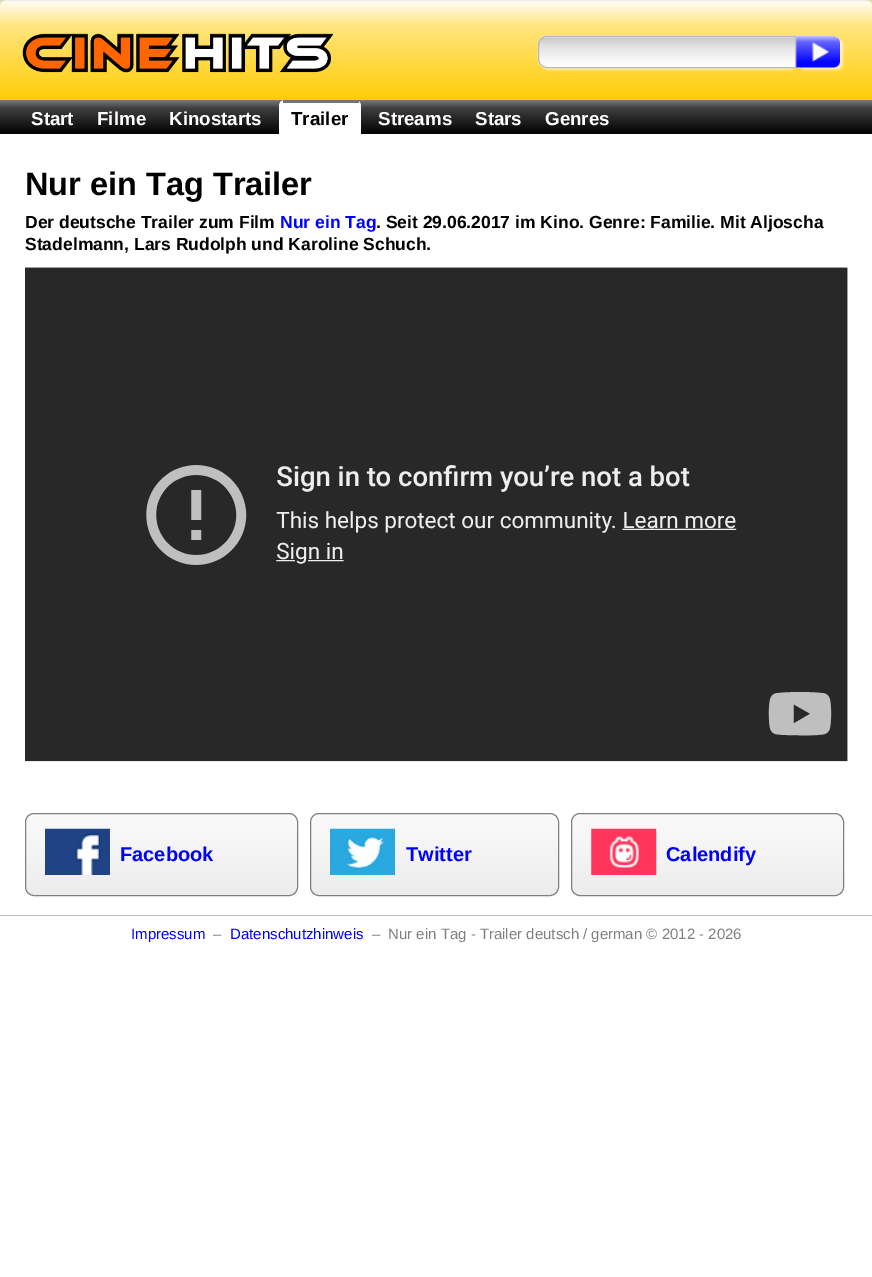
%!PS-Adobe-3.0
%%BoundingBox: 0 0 872 1277
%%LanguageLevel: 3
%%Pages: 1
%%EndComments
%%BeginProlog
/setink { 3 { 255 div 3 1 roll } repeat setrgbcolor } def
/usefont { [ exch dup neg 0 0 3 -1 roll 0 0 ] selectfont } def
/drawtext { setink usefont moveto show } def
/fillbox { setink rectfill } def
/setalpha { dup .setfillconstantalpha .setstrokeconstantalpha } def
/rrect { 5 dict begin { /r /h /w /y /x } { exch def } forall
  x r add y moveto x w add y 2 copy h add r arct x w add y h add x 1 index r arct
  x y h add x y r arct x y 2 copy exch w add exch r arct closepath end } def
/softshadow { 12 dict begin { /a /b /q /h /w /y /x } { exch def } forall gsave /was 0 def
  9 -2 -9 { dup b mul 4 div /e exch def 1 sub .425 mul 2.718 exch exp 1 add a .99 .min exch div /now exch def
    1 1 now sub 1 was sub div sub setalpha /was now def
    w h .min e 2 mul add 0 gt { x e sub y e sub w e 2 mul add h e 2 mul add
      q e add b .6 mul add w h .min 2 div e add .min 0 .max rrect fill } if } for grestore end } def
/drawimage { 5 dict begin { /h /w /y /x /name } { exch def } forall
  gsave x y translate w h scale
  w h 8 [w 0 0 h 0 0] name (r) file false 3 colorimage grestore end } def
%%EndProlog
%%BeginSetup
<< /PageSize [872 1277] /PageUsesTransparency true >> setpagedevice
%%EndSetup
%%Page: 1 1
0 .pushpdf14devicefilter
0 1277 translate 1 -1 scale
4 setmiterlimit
0 0 872 1277 255 255 255 fillbox
(assets/img1.rgb) 0 0 872 6 drawimage
0 0 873 951 6 rrect fill
255 204 2 setink
6 0 moveto 867 0 lineto 870.5 0 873 2.5 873 6 curveto 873 100 lineto 0 100 lineto 0 6 lineto 0 2.5 2.5 0 6 0 curveto closepath fill
(assets/img2.rgb) 0 0 872 99 drawimage
(assets/img3.rgb) 22 33 312 40 drawimage
255 255 255 setink
540 39 259 31 9 1 0.6 softshadow
(assets/img4.rgb) 537 36 258 32 drawimage
185 185 184 setink
547 36.5 moveto 795.5 36.5 lineto 795.5 67.5 lineto 547 67.5 lineto 542.5 67.5 538.5 63.5 538.5 59 curveto 538.5 45 lineto 538.5 40.5 542.5 36.5 547 36.5 curveto closepath stroke
255 255 255 setink
799 39 44 31 6 1 0.6 softshadow
239 239 239 setink
796 36 moveto 834 36 lineto 837.5 36 840 38.5 840 42 curveto 840 62 lineto 840 65.5 837.5 68 834 68 curveto 796 68 lineto closepath fill
(assets/img5.rgb) 796 36 44 32 drawimage
0 130 872 4 6 6 6 fillbox
(assets/img6.rgb) 0 100 872 30 drawimage
(Start) 31 125 /LiberationSans-Bold 18.75 255 255 255 drawtext
(Filme) 97 125 /LiberationSans-Bold 18.75 255 255 255 drawtext
(Kinostarts) 169 125 /LiberationSans-Bold 18.75 255 255 255 drawtext
285 100 moveto 355 100 lineto 358.5 100 361 102.5 361 106 curveto 361 134 lineto 279 134 lineto 279 106 lineto 279 102.5 281.5 100 285 100 curveto closepath fill
283 100 76 3 117 117 117 fillbox
(Trailer) 291 125 /LiberationSans-Bold 18.75 0 0 0 drawtext
(Streams) 378 125 /LiberationSans-Bold 18.75 255 255 255 drawtext
(Stars) 475 125 /LiberationSans-Bold 18.75 255 255 255 drawtext
(Genres) 545 125 /LiberationSans-Bold 18.75 255 255 255 drawtext
(Nur ein Tag Trailer) 25 195 /LiberationSans-Bold 32.5 0 0 0 drawtext
(Der deutsche Trailer zum Film) 25 228 /LiberationSans-Bold 17.5 0 0 0 drawtext
(Nur ein Tag) 280 228 /LiberationSans-Bold 17.5 0 0 255 drawtext
(. Seit 29.06.2017 im Kino. Genre: Familie. Mit Aljoscha) 376 228 /LiberationSans-Bold 17.5 0 0 0 drawtext
(Stadelmann, Lars Rudolph und Karoline Schuch.) 25 250 /LiberationSans-Bold 17.5 0 0 0 drawtext
(assets/img7.rgb) 25 267 823 495 drawimage
221 221 221 setink
25 813 273 83 9 rrect fill
(assets/img8.rgb) 25 813 273 83 drawimage
128 128 128 setink
25.5 813.5 272 82 8.5 rrect stroke
(assets/img9.rgb) 45 828 65 47 drawimage
(Facebook) 120 861 /LiberationSans-Bold 20 0 0 255 drawtext
221 221 221 setink
310 813 249 83 9 rrect fill
(assets/img10.rgb) 310 813 249 83 drawimage
128 128 128 setink
310.5 813.5 248 82 8.5 rrect stroke
(assets/img11.rgb) 330 828 65 47 drawimage
(Twitter) 406 861 /LiberationSans-Bold 20 0 0 255 drawtext
221 221 221 setink
571 813 273 83 9 rrect fill
(assets/img12.rgb) 571 813 273 83 drawimage
128 128 128 setink
571.5 813.5 272 82 8.5 rrect stroke
(assets/img13.rgb) 591 828 66 47 drawimage
(Calendify) 666 861 /LiberationSans-Bold 20 0 0 255 drawtext
0 915 872 1 192 192 192 fillbox
(Impressum) 131 939 /LiberationSans-Regular 15 0 0 255 drawtext
(–) 213 939 /LiberationSans-Regular 15 128 128 128 drawtext
(Datenschutzhinweis) 230 939 /LiberationSans-Regular 15 0 0 255 drawtext
(–) 372 939 /LiberationSans-Regular 15 128 128 128 drawtext
(Nur ein Tag - Trailer deutsch / german © 2012 - 2026) 388 939 /LiberationSans-Regular 15 128 128 128 drawtext
.poppdf14devicefilter showpage
%%EOF
